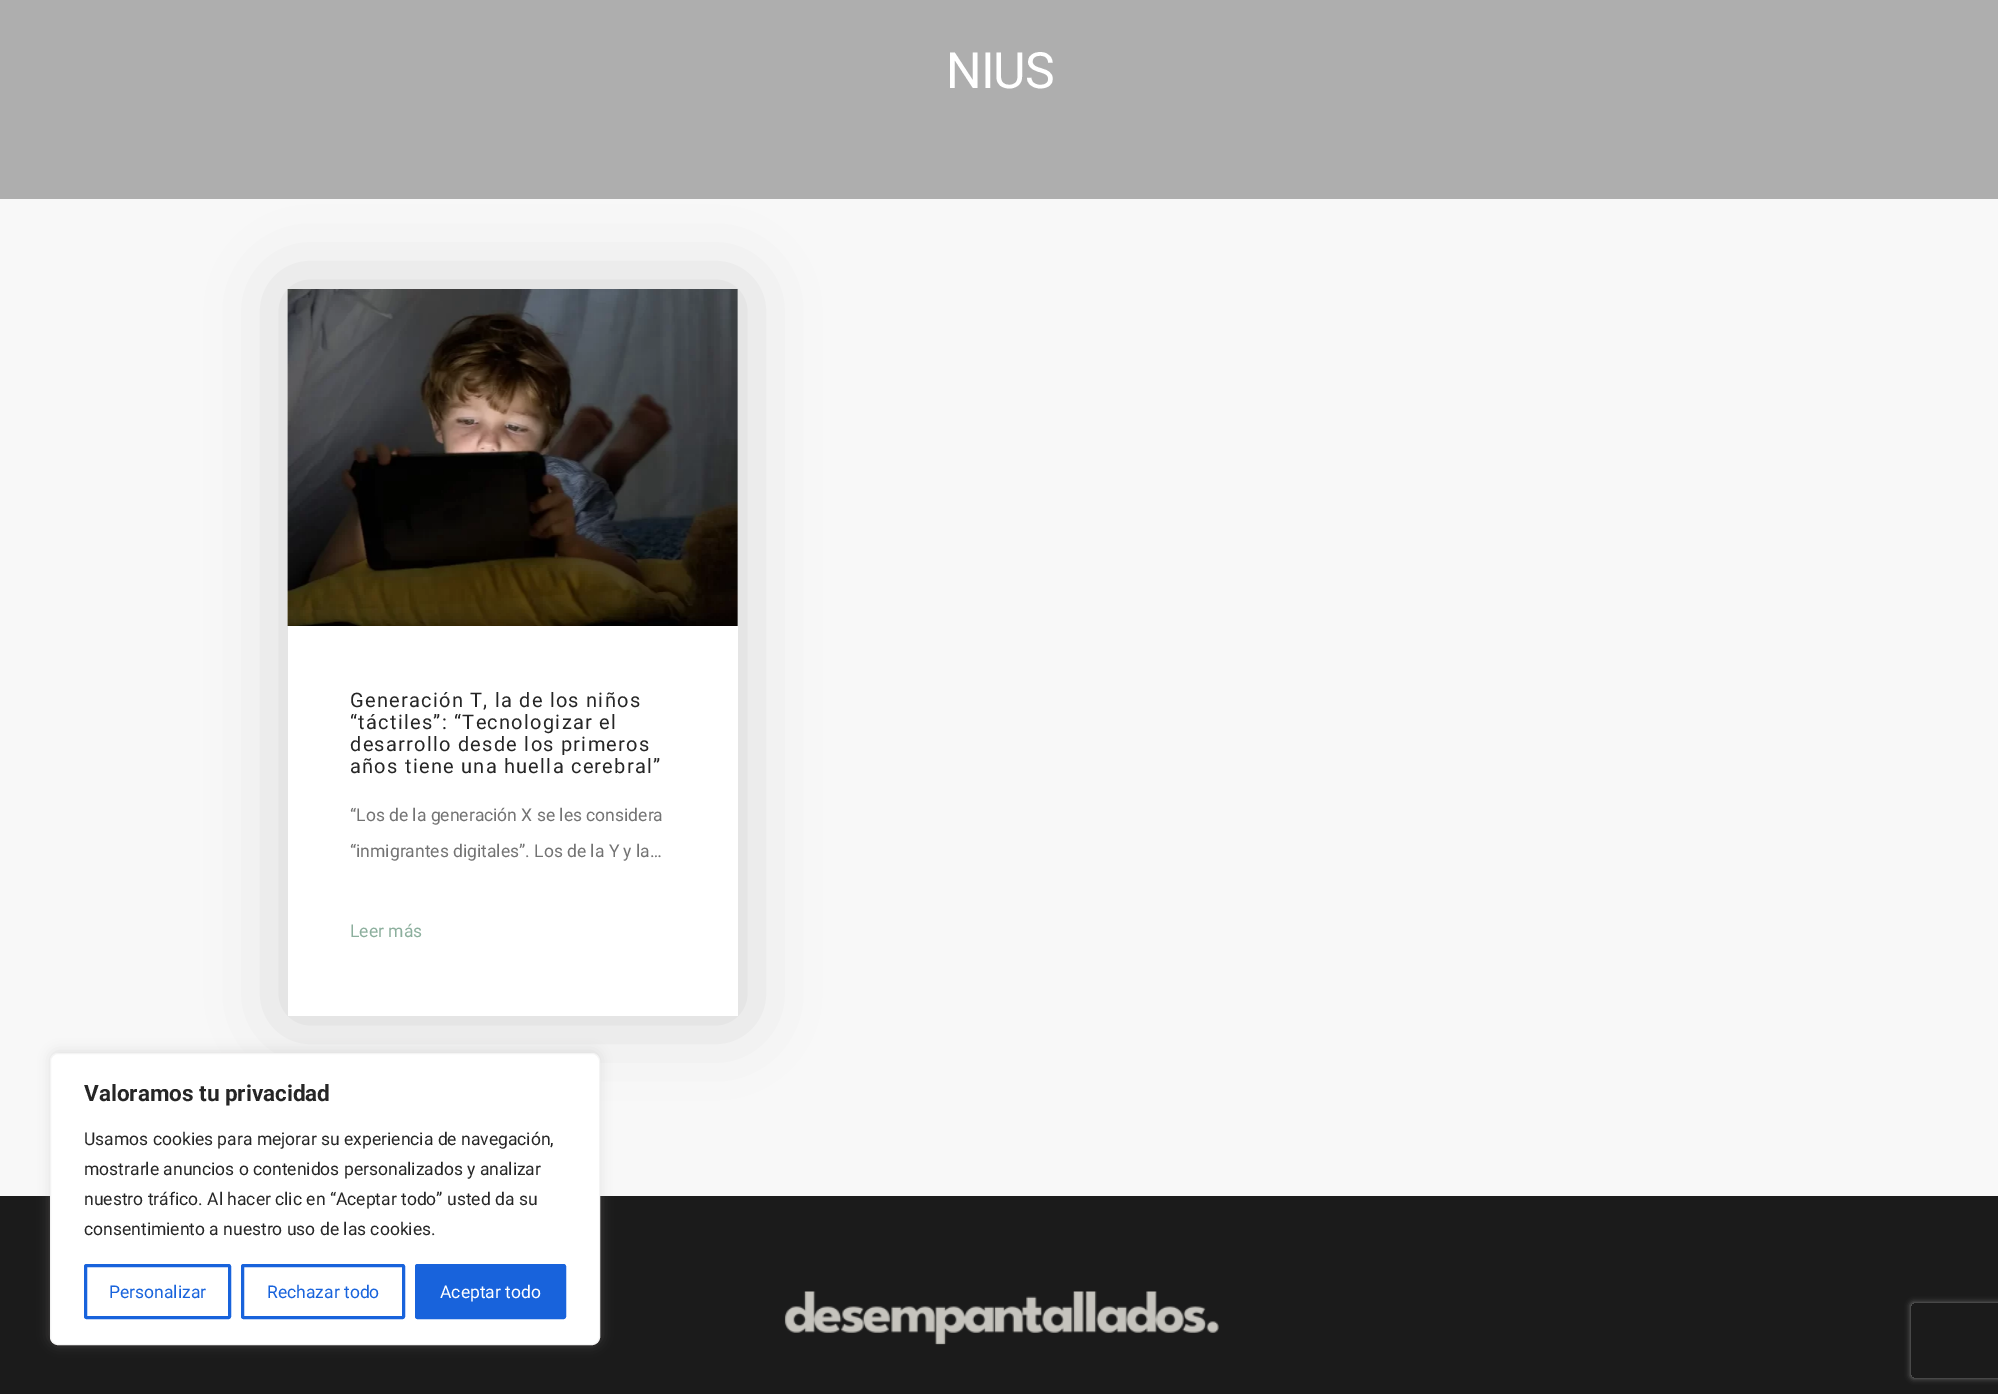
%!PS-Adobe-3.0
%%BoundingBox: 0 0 1998 1394
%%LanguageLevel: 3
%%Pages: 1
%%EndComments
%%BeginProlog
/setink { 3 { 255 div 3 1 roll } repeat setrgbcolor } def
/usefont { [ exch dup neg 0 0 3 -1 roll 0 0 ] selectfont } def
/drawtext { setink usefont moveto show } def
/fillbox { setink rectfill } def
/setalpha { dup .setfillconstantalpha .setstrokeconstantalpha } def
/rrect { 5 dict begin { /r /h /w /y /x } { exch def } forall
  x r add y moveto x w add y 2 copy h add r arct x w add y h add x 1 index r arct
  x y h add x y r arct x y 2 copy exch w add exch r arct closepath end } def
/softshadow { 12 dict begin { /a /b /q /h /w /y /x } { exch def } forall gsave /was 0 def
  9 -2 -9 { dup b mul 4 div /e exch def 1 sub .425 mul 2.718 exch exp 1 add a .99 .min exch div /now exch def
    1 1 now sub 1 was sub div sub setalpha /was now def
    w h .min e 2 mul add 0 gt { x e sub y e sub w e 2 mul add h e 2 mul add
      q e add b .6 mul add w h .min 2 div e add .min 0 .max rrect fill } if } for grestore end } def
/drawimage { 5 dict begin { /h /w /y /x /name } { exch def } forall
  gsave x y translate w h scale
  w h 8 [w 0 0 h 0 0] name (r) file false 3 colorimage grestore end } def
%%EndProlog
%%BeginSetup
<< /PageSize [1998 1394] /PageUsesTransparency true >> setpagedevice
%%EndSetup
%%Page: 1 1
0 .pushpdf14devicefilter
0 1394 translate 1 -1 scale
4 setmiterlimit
0 0 1998 1394 248 248 248 fillbox
0 0 0 setink
288 289 450 727 0 37.5 0.15 softshadow
0 0 1998 199 174 174 174 fillbox
/Roboto-Regular 50 usefont
255 255 255 setink
946 88 moveto -1 0 (NIUS) ashow
288 289 450 727 255 255 255 fillbox
(assets/img1.rgb) 287 289 451 337 drawimage
/Roboto-Regular 20 usefont
38 38 38 setink
350 707 moveto 1.25 0 (Generación T, la de los niños) ashow
350 729 moveto 1.25 0 (“táctiles”: “Tecnologizar el) ashow
350 751 moveto 1.25 0 (desarrollo desde los primeros) ashow
350 773 moveto 1.25 0 (años tiene una huella cerebral”) ashow
(“Los de la generación X se les considera) 350 821 /Roboto-Regular 17.5 115 115 115 drawtext
(“inmigrantes digitales”. Los de la Y y la…) 350 857 /Roboto-Regular 17.5 115 115 115 drawtext
(Leer más) 350 937 /Roboto-Regular 17.5 140 175 157 drawtext
0 1196 1998 198 27 27 27 fillbox
(assets/img2.rgb) 784 1291 435 54 drawimage
172 171 171 setink
50 1051 550 293 8 6 0.3 softshadow
255 255 255 setink
50.5 1053.5 549 291 7.5 rrect gsave fill grestore
244 244 244 setink
stroke
(Valoramos tu privacidad) 84 1101 /Roboto-Bold 22.5 38 38 38 drawtext
(Usamos cookies para mejorar su experiencia de navegación,) 84 1145 /Roboto-Regular 17.5 38 38 38 drawtext
(mostrarle anuncios o contenidos personalizados y analizar) 84 1175 /Roboto-Regular 17.5 38 38 38 drawtext
(nuestro tráfico. Al hacer clic en “Aceptar todo” usted da su) 84 1205 /Roboto-Regular 17.5 38 38 38 drawtext
(consentimiento a nuestro uso de las cookies.) 84 1235 /Roboto-Regular 17.5 38 38 38 drawtext
24 99 220 setink
3 setlinewidth
85.5 1265.5 144 52 1 rrect stroke
(Personalizar) 109 1298 /Roboto-Regular 17.5 24 99 220 drawtext
242.5 1265.5 161 52 1 rrect stroke
(Rechazar todo) 267 1298 /Roboto-Regular 17.5 24 99 220 drawtext
416.5 1265.5 148 52 1 rrect gsave fill grestore
stroke
(Aceptar todo) 440 1298 /Roboto-Regular 17.5 255 255 255 drawtext
gsave
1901 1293 moveto 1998 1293 lineto 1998 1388 lineto 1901 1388 lineto closepath 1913.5 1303 moveto 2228.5 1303 lineto 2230 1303 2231 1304 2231 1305.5 curveto 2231 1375.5 lineto 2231 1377 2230 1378 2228.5 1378 curveto 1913.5 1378 lineto 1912 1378 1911 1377 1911 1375.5 curveto 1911 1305.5 lineto 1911 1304 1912 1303 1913.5 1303 curveto closepath eoclip newpath
128 128 128 setink
1911 1303 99 75 2.5 3 1 softshadow
grestore
.poppdf14devicefilter showpage
%%EOF
